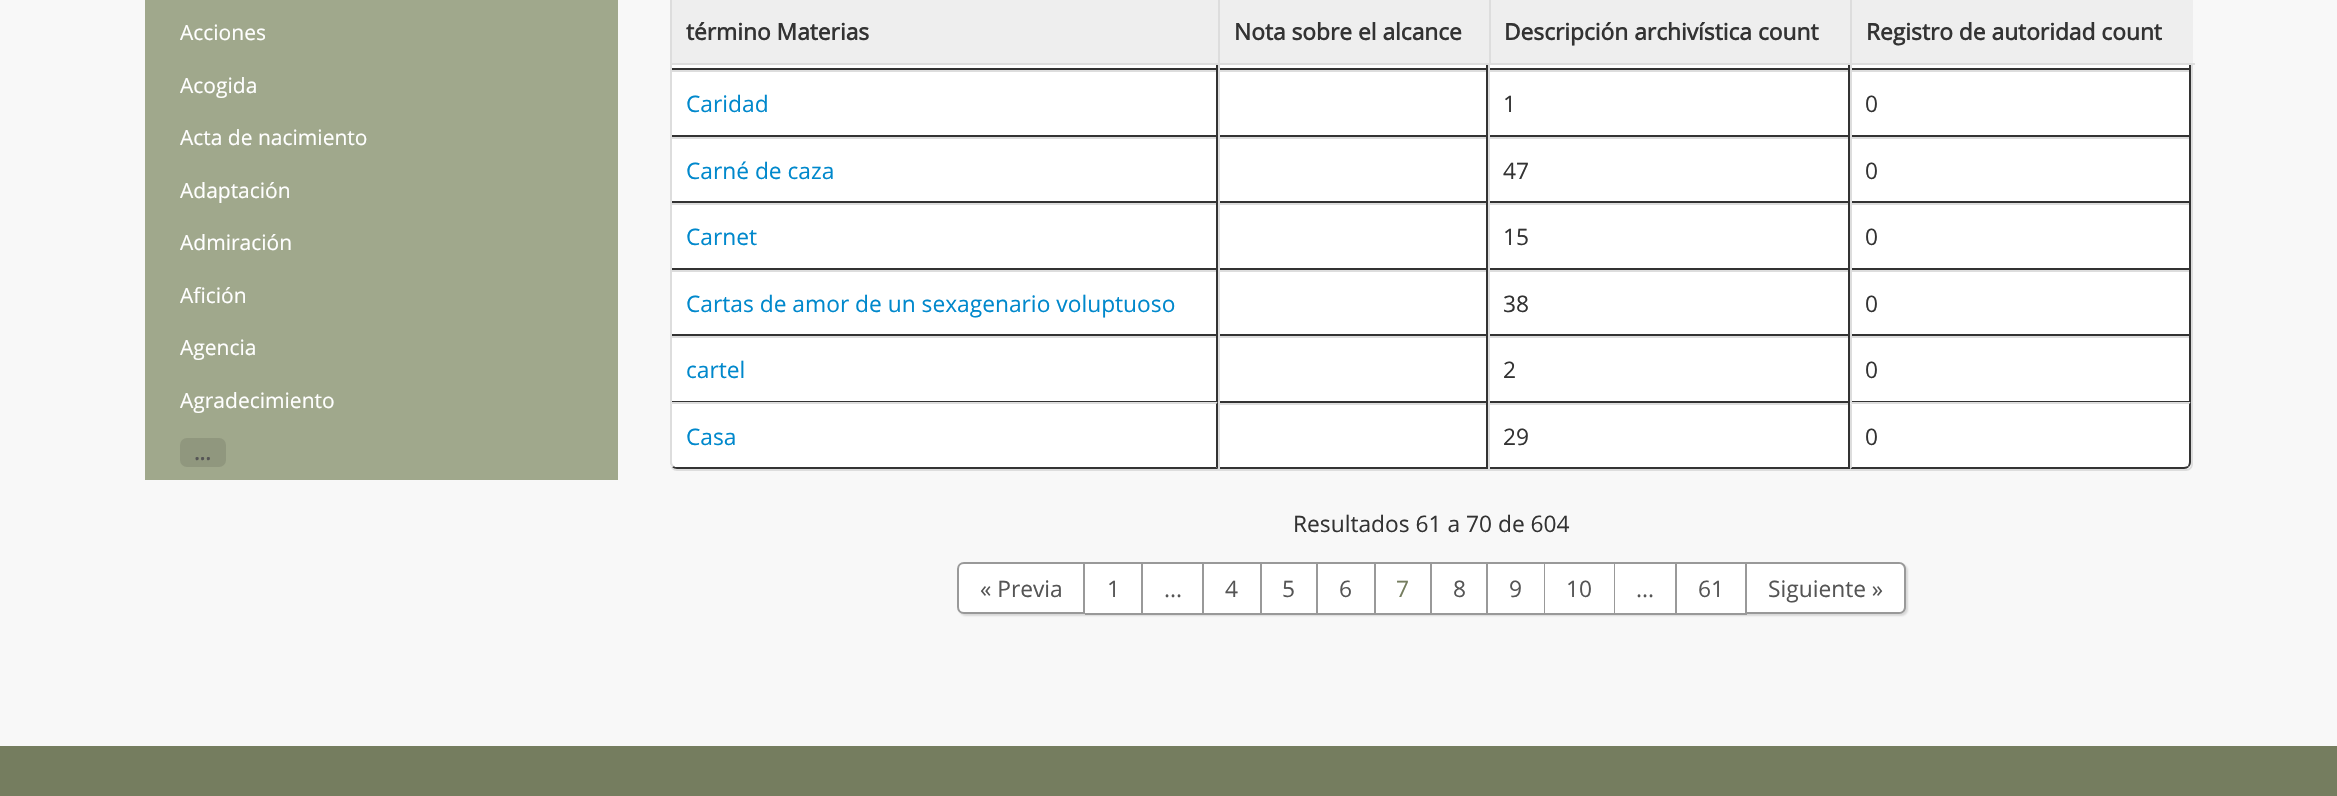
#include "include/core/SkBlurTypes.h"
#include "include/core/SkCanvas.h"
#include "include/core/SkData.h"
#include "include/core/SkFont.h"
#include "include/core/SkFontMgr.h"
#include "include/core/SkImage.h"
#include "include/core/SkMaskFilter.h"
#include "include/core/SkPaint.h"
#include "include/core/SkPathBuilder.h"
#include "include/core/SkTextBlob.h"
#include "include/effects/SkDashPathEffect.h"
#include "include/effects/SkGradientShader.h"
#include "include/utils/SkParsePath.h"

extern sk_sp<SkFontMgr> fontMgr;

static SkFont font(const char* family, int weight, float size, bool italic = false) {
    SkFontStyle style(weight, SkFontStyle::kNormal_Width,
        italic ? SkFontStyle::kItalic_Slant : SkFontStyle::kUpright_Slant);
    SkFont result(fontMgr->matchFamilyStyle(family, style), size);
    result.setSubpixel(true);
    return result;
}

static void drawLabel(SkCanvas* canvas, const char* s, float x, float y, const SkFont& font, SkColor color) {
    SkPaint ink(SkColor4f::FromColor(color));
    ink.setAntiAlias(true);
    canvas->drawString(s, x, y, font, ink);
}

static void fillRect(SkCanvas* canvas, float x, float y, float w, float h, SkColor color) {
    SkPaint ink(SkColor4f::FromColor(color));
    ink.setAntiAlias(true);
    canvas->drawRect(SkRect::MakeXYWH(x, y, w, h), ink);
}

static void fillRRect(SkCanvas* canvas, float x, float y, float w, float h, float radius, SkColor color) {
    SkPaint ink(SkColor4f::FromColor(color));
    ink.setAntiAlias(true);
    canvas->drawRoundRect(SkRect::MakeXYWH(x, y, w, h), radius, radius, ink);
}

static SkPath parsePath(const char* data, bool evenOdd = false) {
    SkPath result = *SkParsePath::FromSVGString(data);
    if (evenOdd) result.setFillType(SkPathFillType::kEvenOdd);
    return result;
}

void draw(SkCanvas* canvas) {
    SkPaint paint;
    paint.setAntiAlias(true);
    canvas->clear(0xFFF8F8F8);
    fillRect(canvas, 145, 0, 473, 480, 0xFFA0A88C);
    SkFont font1 = font("Open Sans", 400, 21);
    drawLabel(canvas, "Acciones", 180, 40, font1, 0xFFFFFFFF);
    drawLabel(canvas, "Acogida", 180, 93, font1, 0xFFFFFFFF);
    drawLabel(canvas, "Acta de nacimiento", 180, 145, font1, 0xFFFFFFFF);
    drawLabel(canvas, "Adaptación", 180, 198, font1, 0xFFFFFFFF);
    drawLabel(canvas, "Admiración", 180, 250, font1, 0xFFFFFFFF);
    drawLabel(canvas, "Afición", 180, 303, font1, 0xFFFFFFFF);
    drawLabel(canvas, "Agencia", 180, 355, font1, 0xFFFFFFFF);
    drawLabel(canvas, "Agradecimiento", 180, 408, font1, 0xFFFFFFFF);
    fillRRect(canvas, 180, 438, 46, 29, 7, 0xFF90977E);
    SkFont font2 = font("Open Sans", 700, 21);
    drawLabel(canvas, "...", 194, 460, font2, 0xFF555555);
    fillRRect(canvas, 670, -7, 1523, 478, 7, 0xFFFFFFFF);
    paint.setColor(0xFFDDDDDD);
    canvas->drawPath(parsePath("M677-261H2186C2190-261 2193-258 2193-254V464C2193 468 2190 471 2186 471H677C673 471 670 468 670 464V-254C670-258 673-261 677-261ZM677-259H2186C2189-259 2191-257 2191-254V464C2191 467 2189 469 2186 469H677C673 469 670 467 670 464V-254C670-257 673-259 677-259Z", true), paint);
    fillRect(canvas, 672, 0, 546, 63, 0xFFEEEEEE);
    fillRect(canvas, 1850, 63, 345, 2, 0xFFDDDDDD);
    fillRect(canvas, 1850, 0, 2, 65, 0xFFDDDDDD);
    fillRect(canvas, 1489, 63, 363, 2, 0xFFDDDDDD);
    fillRect(canvas, 1489, 0, 2, 65, 0xFFDDDDDD);
    fillRect(canvas, 1218, 63, 273, 2, 0xFFDDDDDD);
    fillRect(canvas, 1218, 0, 2, 65, 0xFFDDDDDD);
    fillRect(canvas, 1216, 65, 2, 5, 0xFF333333);
    fillRect(canvas, 670, 68, 548, 2, 0xFF333333);
    fillRect(canvas, 670, 4, 2, 66, 0xFFDDDDDD);
    fillRect(canvas, 670, 63, 550, 2, 0xFFDDDDDD);
    SkFont font3 = font("Open Sans", 700, 22.75f);
    drawLabel(canvas, "término Materias", 686, 40, font3, 0xFF333333);
    fillRect(canvas, 1220, 0, 269, 63, 0xFFEEEEEE);
    drawLabel(canvas, "Nota sobre el alcance", 1234, 40, font3, 0xFF333333);
    fillRect(canvas, 1491, 0, 359, 63, 0xFFEEEEEE);
    drawLabel(canvas, "Descripción archivística count", 1504, 40, font3, 0xFF333333);
    fillRect(canvas, 1852, 0, 341, 63, 0xFFEEEEEE);
    drawLabel(canvas, "Registro de autoridad count", 1866, 40, font3, 0xFF333333);
    fillRect(canvas, 670, 0, 2, 4, 0xFFDDDDDD);
    fillRect(canvas, 1486, 65, 2, 5, 0xFF333333);
    fillRect(canvas, 1218, 68, 270, 2, 0xFF333333);
    fillRect(canvas, 1218, 65, 2, 5, 0xFFDDDDDD);
    fillRect(canvas, 1848, 65, 2, 5, 0xFF333333);
    fillRect(canvas, 1488, 68, 362, 2, 0xFF333333);
    fillRect(canvas, 1488, 65, 2, 5, 0xFFDDDDDD);
    fillRect(canvas, 2189, 65, 2, 5, 0xFF333333);
    fillRect(canvas, 1850, 68, 341, 2, 0xFF333333);
    fillRect(canvas, 1850, 65, 2, 5, 0xFFDDDDDD);
    fillRect(canvas, 670, 70, 1521, 2, 0xFFDDDDDD);
    fillRect(canvas, 1216, 70, 2, 67, 0xFF333333);
    fillRect(canvas, 670, 135, 548, 2, 0xFF333333);
    fillRect(canvas, 670, 70, 2, 67, 0xFFDDDDDD);
    SkFont font4 = font("Open Sans", 400, 22.75f);
    drawLabel(canvas, "Caridad", 686, 112, font4, 0xFF0088CC);
    fillRect(canvas, 1486, 70, 2, 67, 0xFF333333);
    fillRect(canvas, 1218, 135, 270, 2, 0xFF333333);
    fillRect(canvas, 1218, 70, 2, 67, 0xFFDDDDDD);
    fillRect(canvas, 1848, 70, 2, 67, 0xFF333333);
    fillRect(canvas, 1488, 135, 362, 2, 0xFF333333);
    fillRect(canvas, 1488, 70, 2, 67, 0xFFDDDDDD);
    drawLabel(canvas, "1", 1503, 112, font4, 0xFF333333);
    fillRect(canvas, 2189, 70, 2, 67, 0xFF333333);
    fillRect(canvas, 1850, 135, 341, 2, 0xFF333333);
    fillRect(canvas, 1850, 70, 2, 67, 0xFFDDDDDD);
    drawLabel(canvas, "0", 1865, 112, font4, 0xFF333333);
    fillRect(canvas, 670, 137, 1521, 2, 0xFFDDDDDD);
    fillRect(canvas, 1216, 137, 2, 66, 0xFF333333);
    fillRect(canvas, 670, 201, 548, 2, 0xFF333333);
    fillRect(canvas, 670, 137, 2, 66, 0xFFDDDDDD);
    drawLabel(canvas, "Carné de caza", 686, 179, font4, 0xFF0088CC);
    fillRect(canvas, 1486, 137, 2, 66, 0xFF333333);
    fillRect(canvas, 1218, 201, 270, 2, 0xFF333333);
    fillRect(canvas, 1218, 137, 2, 66, 0xFFDDDDDD);
    fillRect(canvas, 1848, 137, 2, 66, 0xFF333333);
    fillRect(canvas, 1488, 201, 362, 2, 0xFF333333);
    fillRect(canvas, 1488, 137, 2, 66, 0xFFDDDDDD);
    drawLabel(canvas, "47", 1503, 179, font4, 0xFF333333);
    fillRect(canvas, 2189, 137, 2, 66, 0xFF333333);
    fillRect(canvas, 1850, 201, 341, 2, 0xFF333333);
    fillRect(canvas, 1850, 137, 2, 66, 0xFFDDDDDD);
    drawLabel(canvas, "0", 1865, 179, font4, 0xFF333333);
    fillRect(canvas, 670, 203, 1521, 2, 0xFFDDDDDD);
    fillRect(canvas, 1216, 203, 2, 67, 0xFF333333);
    fillRect(canvas, 670, 268, 548, 2, 0xFF333333);
    fillRect(canvas, 670, 203, 2, 67, 0xFFDDDDDD);
    drawLabel(canvas, "Carnet", 686, 245, font4, 0xFF0088CC);
    fillRect(canvas, 1486, 203, 2, 67, 0xFF333333);
    fillRect(canvas, 1218, 268, 270, 2, 0xFF333333);
    fillRect(canvas, 1218, 203, 2, 67, 0xFFDDDDDD);
    fillRect(canvas, 1848, 203, 2, 67, 0xFF333333);
    fillRect(canvas, 1488, 268, 362, 2, 0xFF333333);
    fillRect(canvas, 1488, 203, 2, 67, 0xFFDDDDDD);
    drawLabel(canvas, "15", 1503, 245, font4, 0xFF333333);
    fillRect(canvas, 2189, 203, 2, 67, 0xFF333333);
    fillRect(canvas, 1850, 268, 341, 2, 0xFF333333);
    fillRect(canvas, 1850, 203, 2, 67, 0xFFDDDDDD);
    drawLabel(canvas, "0", 1865, 245, font4, 0xFF333333);
    fillRect(canvas, 670, 270, 1521, 2, 0xFFDDDDDD);
    fillRect(canvas, 1216, 270, 2, 66, 0xFF333333);
    fillRect(canvas, 670, 334, 548, 2, 0xFF333333);
    fillRect(canvas, 670, 270, 2, 66, 0xFFDDDDDD);
    drawLabel(canvas, "Cartas de amor de un sexagenario voluptuoso", 686, 312, font4, 0xFF0088CC);
    fillRect(canvas, 1486, 270, 2, 66, 0xFF333333);
    fillRect(canvas, 1218, 334, 270, 2, 0xFF333333);
    fillRect(canvas, 1218, 270, 2, 66, 0xFFDDDDDD);
    fillRect(canvas, 1848, 270, 2, 66, 0xFF333333);
    fillRect(canvas, 1488, 334, 362, 2, 0xFF333333);
    fillRect(canvas, 1488, 270, 2, 66, 0xFFDDDDDD);
    drawLabel(canvas, "38", 1503, 312, font4, 0xFF333333);
    fillRect(canvas, 2189, 270, 2, 66, 0xFF333333);
    fillRect(canvas, 1850, 334, 341, 2, 0xFF333333);
    fillRect(canvas, 1850, 270, 2, 66, 0xFFDDDDDD);
    drawLabel(canvas, "0", 1865, 312, font4, 0xFF333333);
    fillRect(canvas, 670, 336, 1521, 2, 0xFFDDDDDD);
    fillRect(canvas, 1216, 336, 2, 67, 0xFF333333);
    fillRect(canvas, 670, 401, 548, 2, 0xFF333333);
    fillRect(canvas, 670, 336, 2, 67, 0xFFDDDDDD);
    drawLabel(canvas, "cartel", 686, 378, font4, 0xFF0088CC);
    fillRect(canvas, 1486, 336, 2, 67, 0xFF333333);
    fillRect(canvas, 1218, 401, 270, 2, 0xFF333333);
    fillRect(canvas, 1218, 336, 2, 67, 0xFFDDDDDD);
    fillRect(canvas, 1848, 336, 2, 67, 0xFF333333);
    fillRect(canvas, 1488, 401, 362, 2, 0xFF333333);
    fillRect(canvas, 1488, 336, 2, 67, 0xFFDDDDDD);
    drawLabel(canvas, "2", 1503, 378, font4, 0xFF333333);
    fillRect(canvas, 2189, 336, 2, 67, 0xFF333333);
    fillRect(canvas, 1850, 401, 341, 2, 0xFF333333);
    fillRect(canvas, 1850, 336, 2, 67, 0xFFDDDDDD);
    drawLabel(canvas, "0", 1865, 378, font4, 0xFF333333);
    canvas->drawPath(parsePath("M672 404H1216L1218 402H670Z"), paint);
    paint.setColor(0xFF333333);
    canvas->drawPath(parsePath("M1218 402L1216 404V467L1218 469Z"), paint);
    canvas->drawPath(parsePath("M1218 469L1216 467H677C676 467 674 467 674 466L672 467C673 468 675 469 677 469Z"), paint);
    paint.setColor(0xFFDDDDDD);
    canvas->drawPath(parsePath("M672 467L670 464V402L672 404V462C672 464 673 465 674 466Z"), paint);
    drawLabel(canvas, "Casa", 686, 445, font4, 0xFF0088CC);
    fillRect(canvas, 1218, 403, 632, 2, 0xFFDDDDDD);
    fillRect(canvas, 1486, 403, 2, 66, 0xFF333333);
    fillRect(canvas, 1218, 467, 270, 2, 0xFF333333);
    fillRect(canvas, 1218, 403, 2, 66, 0xFFDDDDDD);
    fillRect(canvas, 1848, 403, 2, 66, 0xFF333333);
    fillRect(canvas, 1488, 467, 362, 2, 0xFF333333);
    fillRect(canvas, 1488, 403, 2, 66, 0xFFDDDDDD);
    drawLabel(canvas, "29", 1503, 445, font4, 0xFF333333);
    canvas->drawPath(parsePath("M1852 404V405L1850 402H2191L2189 404Z"), paint);
    paint.setColor(0xFF333333);
    canvas->drawPath(parsePath("M2191 402L2189 404V462C2189 464 2188 465 2188 466L2189 467C2190 466 2191 464 2191 462Z"), paint);
    canvas->drawPath(parsePath("M1850 469H2184C2186 469 2188 468 2189 467L2188 466C2187 466 2186 467 2184 467H1852Z"), paint);
    paint.setColor(0xFFDDDDDD);
    canvas->drawPath(parsePath("M1850 469V403L1852 405V467Z"), paint);
    drawLabel(canvas, "0", 1865, 445, font4, 0xFF333333);
    drawLabel(canvas, "Resultados 61 a 70 de 604", 1293, 532, font4, 0xFF333333);
    paint.setColor(0x26191919);
    paint.setMaskFilter(SkMaskFilter::MakeBlur(kNormal_SkBlurStyle, 1));
    canvas->drawRoundRect(SkRect::MakeXYWH(959, 564, 949, 52), 7, 7, paint);
    paint.setMaskFilter(nullptr);
    paint.setColor(0xFFFFFFFF);
    canvas->drawPath(parsePath("M964 563H1084V613H964C960.5 613 958 610.5 958 607V569C958 565.5 960.5 563 964 563Z"), paint);
    paint.setStroke(true);
    paint.setStrokeWidth(2);
    paint.setColor(0xFF999999);
    canvas->drawPath(parsePath("M964 563H1084V613H964C960.5 613 958 610.5 958 607V569C958 565.5 960.5 563 964 563Z"), paint);
    drawLabel(canvas, "« Previa", 980, 597, font4, 0xFF555555);
    fillRect(canvas, 1085, 564, 56, 49, 0xFFFFFFFF);
    fillRect(canvas, 1085, 562, 662, 2, 0xFF999999);
    fillRect(canvas, 1141, 562, 2, 52, 0xFF999999);
    fillRect(canvas, 1085, 613, 58, 2, 0xFF999999);
    drawLabel(canvas, "1", 1107, 597, font4, 0xFF555555);
    fillRect(canvas, 1143, 564, 59, 49, 0xFFFFFFFF);
    fillRect(canvas, 1202, 562, 2, 52, 0xFF999999);
    fillRect(canvas, 1143, 613, 61, 2, 0xFF999999);
    drawLabel(canvas, "...", 1164, 597, font4, 0xFF555555);
    fillRect(canvas, 1204, 564, 56, 49, 0xFFFFFFFF);
    fillRect(canvas, 1260, 562, 2, 52, 0xFF999999);
    fillRect(canvas, 1204, 613, 58, 2, 0xFF999999);
    drawLabel(canvas, "4", 1225, 597, font4, 0xFF555555);
    fillRect(canvas, 1262, 564, 54, 49, 0xFFFFFFFF);
    fillRect(canvas, 1316, 562, 2, 52, 0xFF999999);
    fillRect(canvas, 1262, 613, 56, 2, 0xFF999999);
    drawLabel(canvas, "5", 1282, 597, font4, 0xFF555555);
    fillRect(canvas, 1318, 564, 56, 49, 0xFFFFFFFF);
    fillRect(canvas, 1374, 562, 2, 52, 0xFF999999);
    fillRect(canvas, 1318, 613, 58, 2, 0xFF999999);
    drawLabel(canvas, "6", 1339, 597, font4, 0xFF555555);
    fillRect(canvas, 1376, 564, 54, 49, 0xFFFFFFFF);
    fillRect(canvas, 1430, 562, 2, 52, 0xFF999999);
    fillRect(canvas, 1376, 613, 56, 2, 0xFF999999);
    drawLabel(canvas, "7", 1396, 597, font4, 0xFF757D5F);
    fillRect(canvas, 1432, 564, 54, 49, 0xFFFFFFFF);
    fillRect(canvas, 1486, 562, 2, 52, 0xFF999999);
    fillRect(canvas, 1432, 613, 56, 2, 0xFF999999);
    drawLabel(canvas, "8", 1453, 597, font4, 0xFF555555);
    fillRect(canvas, 1488, 564, 56, 49, 0xFFFFFFFF);
    fillRect(canvas, 1544, 562, 1, 52, 0xFF999999);
    fillRect(canvas, 1488, 613, 57, 2, 0xFF999999);
    drawLabel(canvas, "9", 1509, 597, font4, 0xFF555555);
    fillRect(canvas, 1545, 564, 69, 49, 0xFFFFFFFF);
    fillRect(canvas, 1614, 562, 1, 52, 0xFF999999);
    fillRect(canvas, 1545, 613, 70, 2, 0xFF999999);
    drawLabel(canvas, "10", 1566, 597, font4, 0xFF555555);
    fillRect(canvas, 1615, 564, 60, 49, 0xFFFFFFFF);
    fillRect(canvas, 1675, 562, 2, 52, 0xFF999999);
    fillRect(canvas, 1615, 613, 62, 2, 0xFF999999);
    drawLabel(canvas, "...", 1636, 597, font4, 0xFF555555);
    fillRect(canvas, 1677, 564, 68, 49, 0xFFFFFFFF);
    fillRect(canvas, 1745, 562, 2, 52, 0xFF999999);
    fillRect(canvas, 1677, 613, 70, 2, 0xFF999999);
    drawLabel(canvas, "61", 1698, 597, font4, 0xFF555555);
    paint.setStroke(false);
    paint.setColor(0xFFFFFFFF);
    canvas->drawPath(parsePath("M1747 564H1899C1902 564 1904 566 1904 569V608C1904 611 1902 613 1899 613H1747Z"), paint);
    paint.setColor(0xFF999999);
    canvas->drawPath(parsePath("M1746 562H1899C1903 562 1906 565 1906 569V607C1906 611 1903 614 1899 614H1746ZM1746 564H1899C1902 564 1904 566 1904 569V607C1904 610 1902 612 1899 612H1746Z", true), paint);
    drawLabel(canvas, "Siguiente »", 1768, 597, font4, 0xFF555555);
    fillRect(canvas, 0, 746, 2337, 50, 0xFF757D5F);
}
